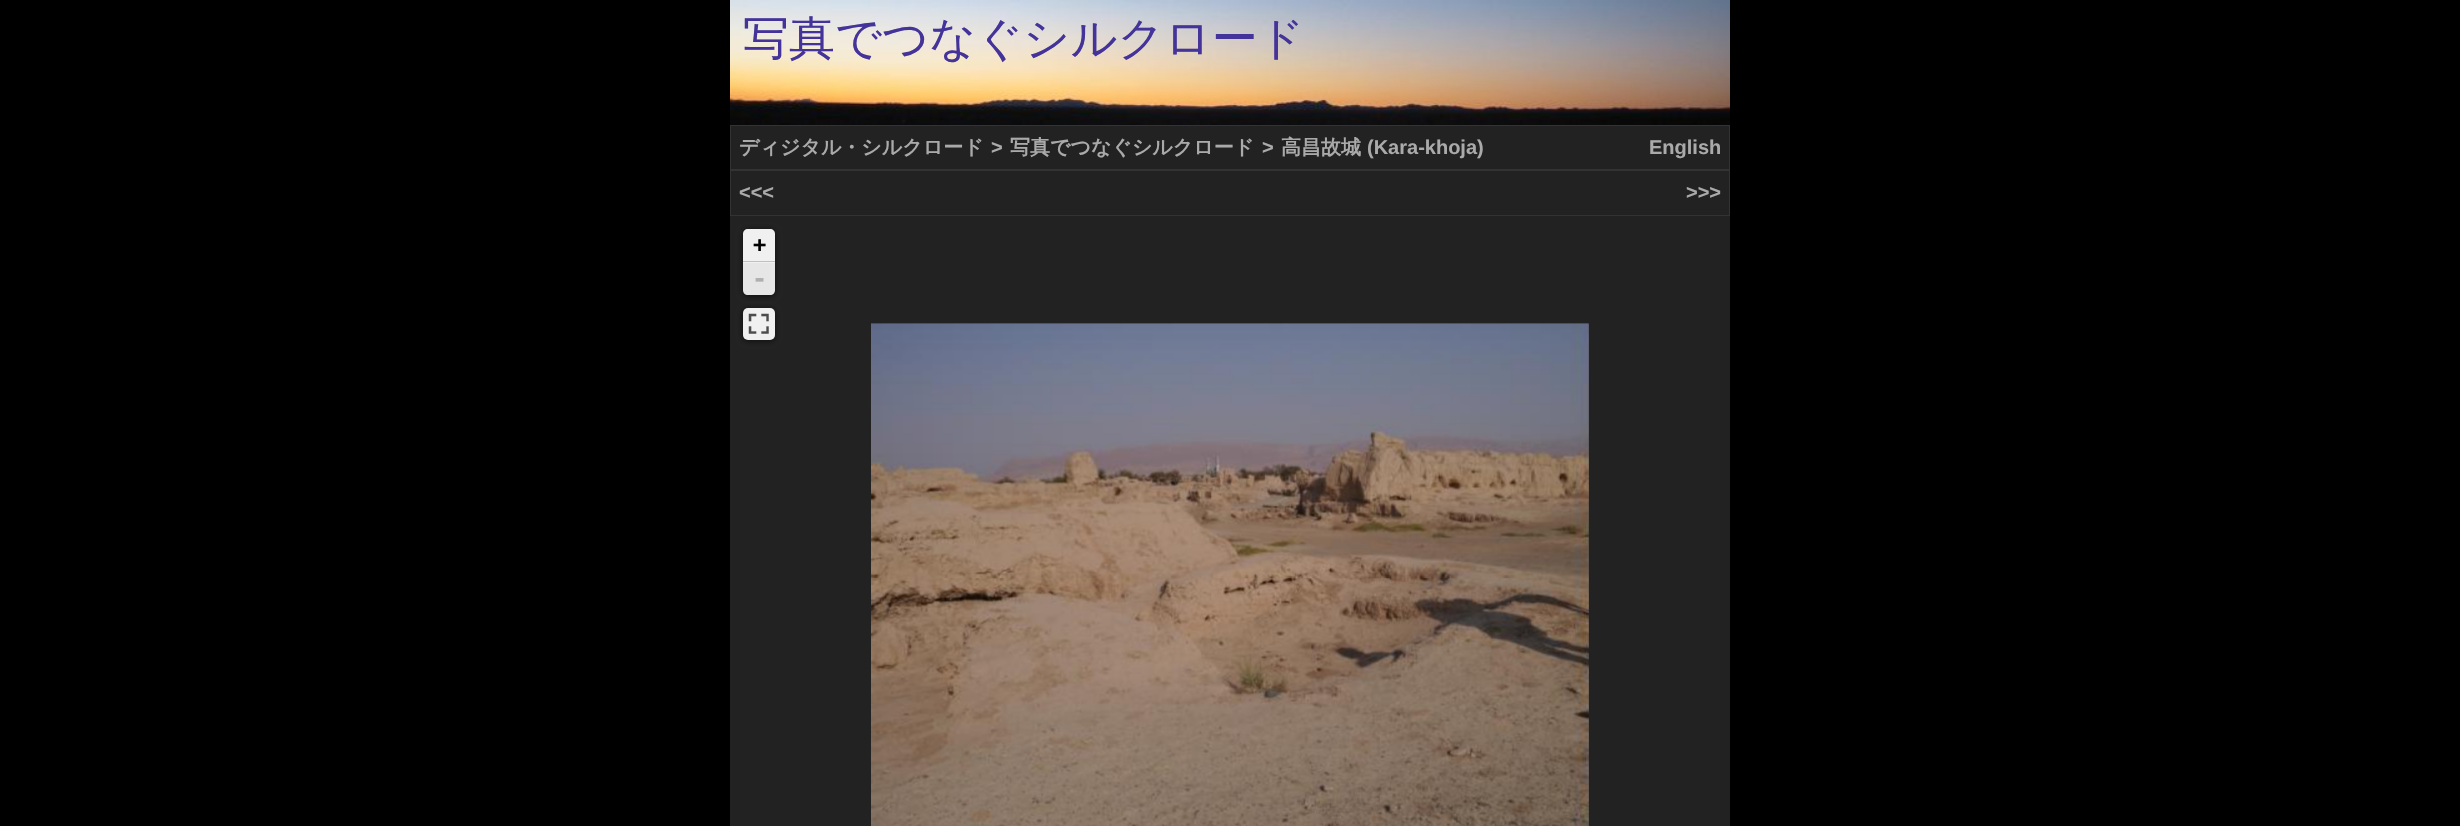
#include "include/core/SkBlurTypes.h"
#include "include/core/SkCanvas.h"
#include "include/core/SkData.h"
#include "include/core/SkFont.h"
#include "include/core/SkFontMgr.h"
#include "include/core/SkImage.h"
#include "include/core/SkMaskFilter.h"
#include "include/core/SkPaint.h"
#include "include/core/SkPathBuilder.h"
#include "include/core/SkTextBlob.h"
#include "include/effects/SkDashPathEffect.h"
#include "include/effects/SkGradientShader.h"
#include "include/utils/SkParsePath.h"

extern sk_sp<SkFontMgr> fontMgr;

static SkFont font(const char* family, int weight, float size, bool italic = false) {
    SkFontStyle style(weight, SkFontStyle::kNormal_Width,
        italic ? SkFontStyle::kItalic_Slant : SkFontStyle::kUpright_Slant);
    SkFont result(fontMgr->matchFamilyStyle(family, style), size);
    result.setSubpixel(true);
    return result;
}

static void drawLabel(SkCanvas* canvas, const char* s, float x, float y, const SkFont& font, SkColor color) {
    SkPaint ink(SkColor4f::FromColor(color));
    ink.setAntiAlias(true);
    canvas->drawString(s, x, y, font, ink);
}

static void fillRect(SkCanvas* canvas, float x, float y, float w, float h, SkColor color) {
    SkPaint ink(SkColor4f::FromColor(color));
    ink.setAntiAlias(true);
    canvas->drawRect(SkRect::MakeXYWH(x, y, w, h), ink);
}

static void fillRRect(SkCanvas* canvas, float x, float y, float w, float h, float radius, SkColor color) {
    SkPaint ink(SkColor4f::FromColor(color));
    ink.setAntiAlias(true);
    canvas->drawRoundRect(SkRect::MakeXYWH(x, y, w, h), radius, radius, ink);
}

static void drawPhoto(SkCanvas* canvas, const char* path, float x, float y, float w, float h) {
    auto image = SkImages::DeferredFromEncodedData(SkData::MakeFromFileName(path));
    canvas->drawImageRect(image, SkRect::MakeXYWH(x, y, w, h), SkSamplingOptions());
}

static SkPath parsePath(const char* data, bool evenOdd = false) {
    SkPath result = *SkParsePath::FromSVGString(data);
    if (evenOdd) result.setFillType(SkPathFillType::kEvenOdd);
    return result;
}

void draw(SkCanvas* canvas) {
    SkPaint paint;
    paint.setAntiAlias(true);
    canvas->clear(0xFF000000);
    drawPhoto(canvas, "assets/img1.png", 730, 0, 1000, 125);
    SkFont font1 = font("WenQuanYi Zen Hei", 500, 46);
    drawLabel(canvas, "写真でつなぐシルクロード", 743, 54, font1, 0xFF443399);
    paint.setStroke(true);
    paint.setStrokeWidth(1);
    paint.setColor(0xFF333333);
    canvas->drawRect(SkRect::MakeXYWH(730.5f, 125.5f, 999, 44), paint);
    fillRect(canvas, 731, 126, 998, 43, 0xFF222222);
    SkFont font2 = font("WenQuanYi Zen Hei", 700, 20);
    drawLabel(canvas, "ディジタル・シルクロード", 739, 154, font2, 0xFFAAAAAA);
    SkFont font3 = font("Liberation Sans", 700, 20);
    drawLabel(canvas, ">", 991, 154, font3, 0xFFAAAAAA);
    drawLabel(canvas, "写真でつなぐシルクロード", 1010, 154, font2, 0xFFAAAAAA);
    drawLabel(canvas, ">", 1262, 154, font3, 0xFFAAAAAA);
    drawLabel(canvas, "高昌故城", 1281, 154, font2, 0xFFAAAAAA);
    drawLabel(canvas, "(Kara-khoja)", 1367, 154, font3, 0xFFAAAAAA);
    drawLabel(canvas, "English", 1649, 154, font3, 0xFFAAAAAA);
    canvas->drawRect(SkRect::MakeXYWH(730.5f, 170.5f, 999, 45), paint);
    fillRect(canvas, 731, 171, 998, 44, 0xFF222222);
    drawLabel(canvas, "<<<", 739, 199, font3, 0xFFAAAAAA);
    drawLabel(canvas, ">>>", 1686, 199, font3, 0xFFAAAAAA);
    fillRect(canvas, 730, 216, 1000, 610, 0xFF222222);
    paint.setStroke(false);
    paint.setColor(0xA6020202);
    paint.setMaskFilter(SkMaskFilter::MakeBlur(kNormal_SkBlurStyle, 3));
    canvas->drawRoundRect(SkRect::MakeXYWH(743, 230, 32, 66), 5, 5, paint);
    paint.setMaskFilter(nullptr);
    paint.setColor(0xFFF0F0F0);
    canvas->drawPath(parsePath("M748 229H770C773 229 775 231 775 234V263H743V234C743 231 745 229 748 229Z"), paint);
    fillRect(canvas, 743, 261, 32, 1, 0xFFC0C0C0);
    SkFont font4 = font("DejaVu Sans Mono", 700, 22);
    drawLabel(canvas, "+", 753, 252, font4, 0xFF020202);
    paint.setColor(0xFFE6E6E6);
    canvas->drawPath(parsePath("M743 263H775V290C775 293 773 295 770 295H748C745 295 743 293 743 290Z"), paint);
    SkFont font5 = font("DejaVu Sans Mono", 700, 25);
    drawLabel(canvas, "-", 752, 287, font5, 0xFFB0B0B0);
    paint.setColor(0xA6020202);
    paint.setMaskFilter(SkMaskFilter::MakeBlur(kNormal_SkBlurStyle, 3));
    canvas->drawRoundRect(SkRect::MakeXYWH(743, 309, 32, 32), 5, 5, paint);
    paint.setMaskFilter(nullptr);
    fillRRect(canvas, 743, 308, 32, 32, 5, 0xFFF0F0F0);
    drawPhoto(canvas, "assets/img2.png", 748, 313, 21, 21);
    drawPhoto(canvas, "assets/img3.png", 871, 323, 718, 503);
    drawPhoto(canvas, "assets/img4.png", 871, 323, 718, 503);
}
